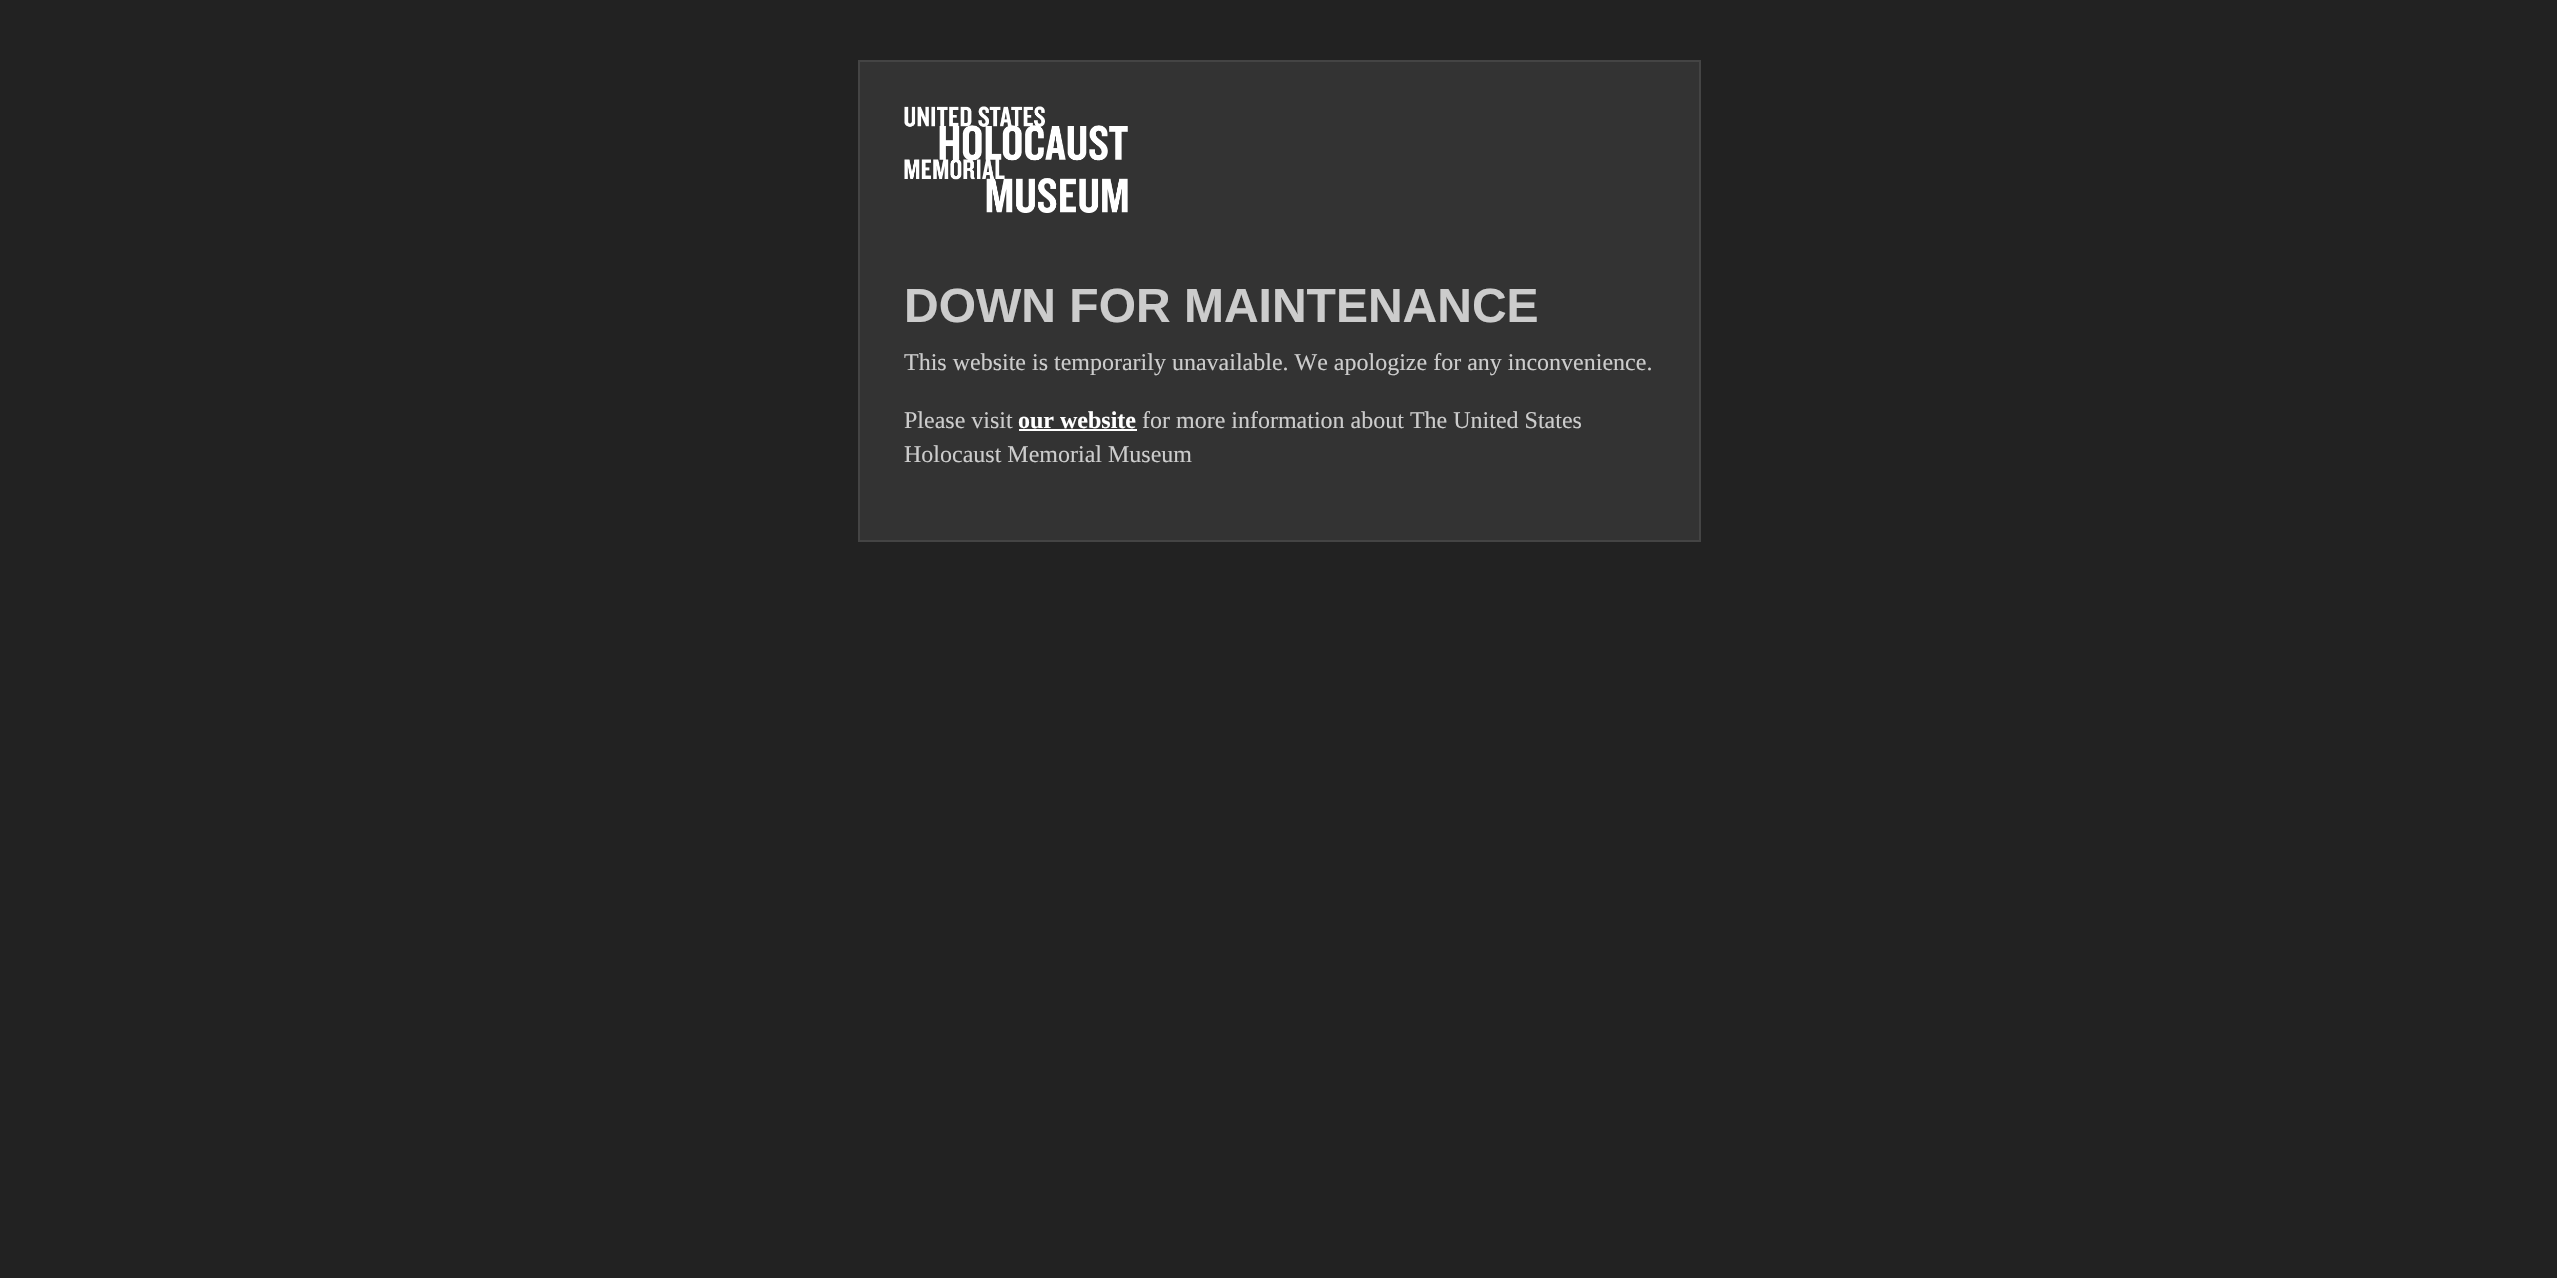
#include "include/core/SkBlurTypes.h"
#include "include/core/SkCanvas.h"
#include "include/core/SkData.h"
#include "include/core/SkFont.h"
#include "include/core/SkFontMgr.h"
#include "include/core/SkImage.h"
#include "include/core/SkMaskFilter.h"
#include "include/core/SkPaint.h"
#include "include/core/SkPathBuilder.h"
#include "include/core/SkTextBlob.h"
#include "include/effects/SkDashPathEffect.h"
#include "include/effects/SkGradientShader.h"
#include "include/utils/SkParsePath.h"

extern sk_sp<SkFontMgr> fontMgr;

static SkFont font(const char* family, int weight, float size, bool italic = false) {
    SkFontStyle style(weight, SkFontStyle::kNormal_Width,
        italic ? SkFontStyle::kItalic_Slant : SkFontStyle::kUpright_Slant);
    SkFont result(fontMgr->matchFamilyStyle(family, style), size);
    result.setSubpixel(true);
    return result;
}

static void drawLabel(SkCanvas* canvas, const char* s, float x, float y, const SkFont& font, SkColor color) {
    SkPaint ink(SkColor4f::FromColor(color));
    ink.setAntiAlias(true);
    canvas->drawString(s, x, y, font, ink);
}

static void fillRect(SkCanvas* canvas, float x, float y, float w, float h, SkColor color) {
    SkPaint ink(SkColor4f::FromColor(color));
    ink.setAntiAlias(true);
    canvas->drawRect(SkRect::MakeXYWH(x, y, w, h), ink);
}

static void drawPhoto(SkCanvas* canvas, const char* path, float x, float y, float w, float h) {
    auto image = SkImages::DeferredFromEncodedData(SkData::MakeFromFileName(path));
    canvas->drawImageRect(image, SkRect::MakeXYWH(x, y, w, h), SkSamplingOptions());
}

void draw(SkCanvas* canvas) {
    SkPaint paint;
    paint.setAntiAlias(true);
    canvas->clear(0xFF222222);
    paint.setColor(0xFF333333);
    canvas->drawRect(SkRect::MakeXYWH(859, 61, 841, 480), paint);
    paint.setStroke(true);
    paint.setStrokeWidth(2);
    paint.setColor(0xFF444444);
    canvas->drawRect(SkRect::MakeXYWH(859, 61, 841, 480), paint);
    drawPhoto(canvas, "assets/img1.png", 904, 106, 224, 107);
    SkFont font1 = font("Liberation Sans", 700, 48);
    drawLabel(canvas, "DOWN FOR MAINTENANCE", 904, 322, font1, 0xFFCCCCCC);
    SkFont font2 = font("Liberation Serif", 400, 24);
    drawLabel(canvas, "This website is temporarily unavailable. We apologize for any inconvenience.", 904, 370, font2, 0xFFCCCCCC);
    drawLabel(canvas, "Please visit", 904, 428, font2, 0xFFCCCCCC);
    SkFont font3 = font("Liberation Serif", 700, 24);
    drawLabel(canvas, "our website", 1018, 428, font3, 0xFFFFFFFF);
    fillRect(canvas, 1019, 429, 118, 2, 0xFFFFFFFF);
    drawLabel(canvas, "for more information about The United States", 1142, 428, font2, 0xFFCCCCCC);
    drawLabel(canvas, "Holocaust Memorial Museum", 904, 462, font2, 0xFFCCCCCC);
}
